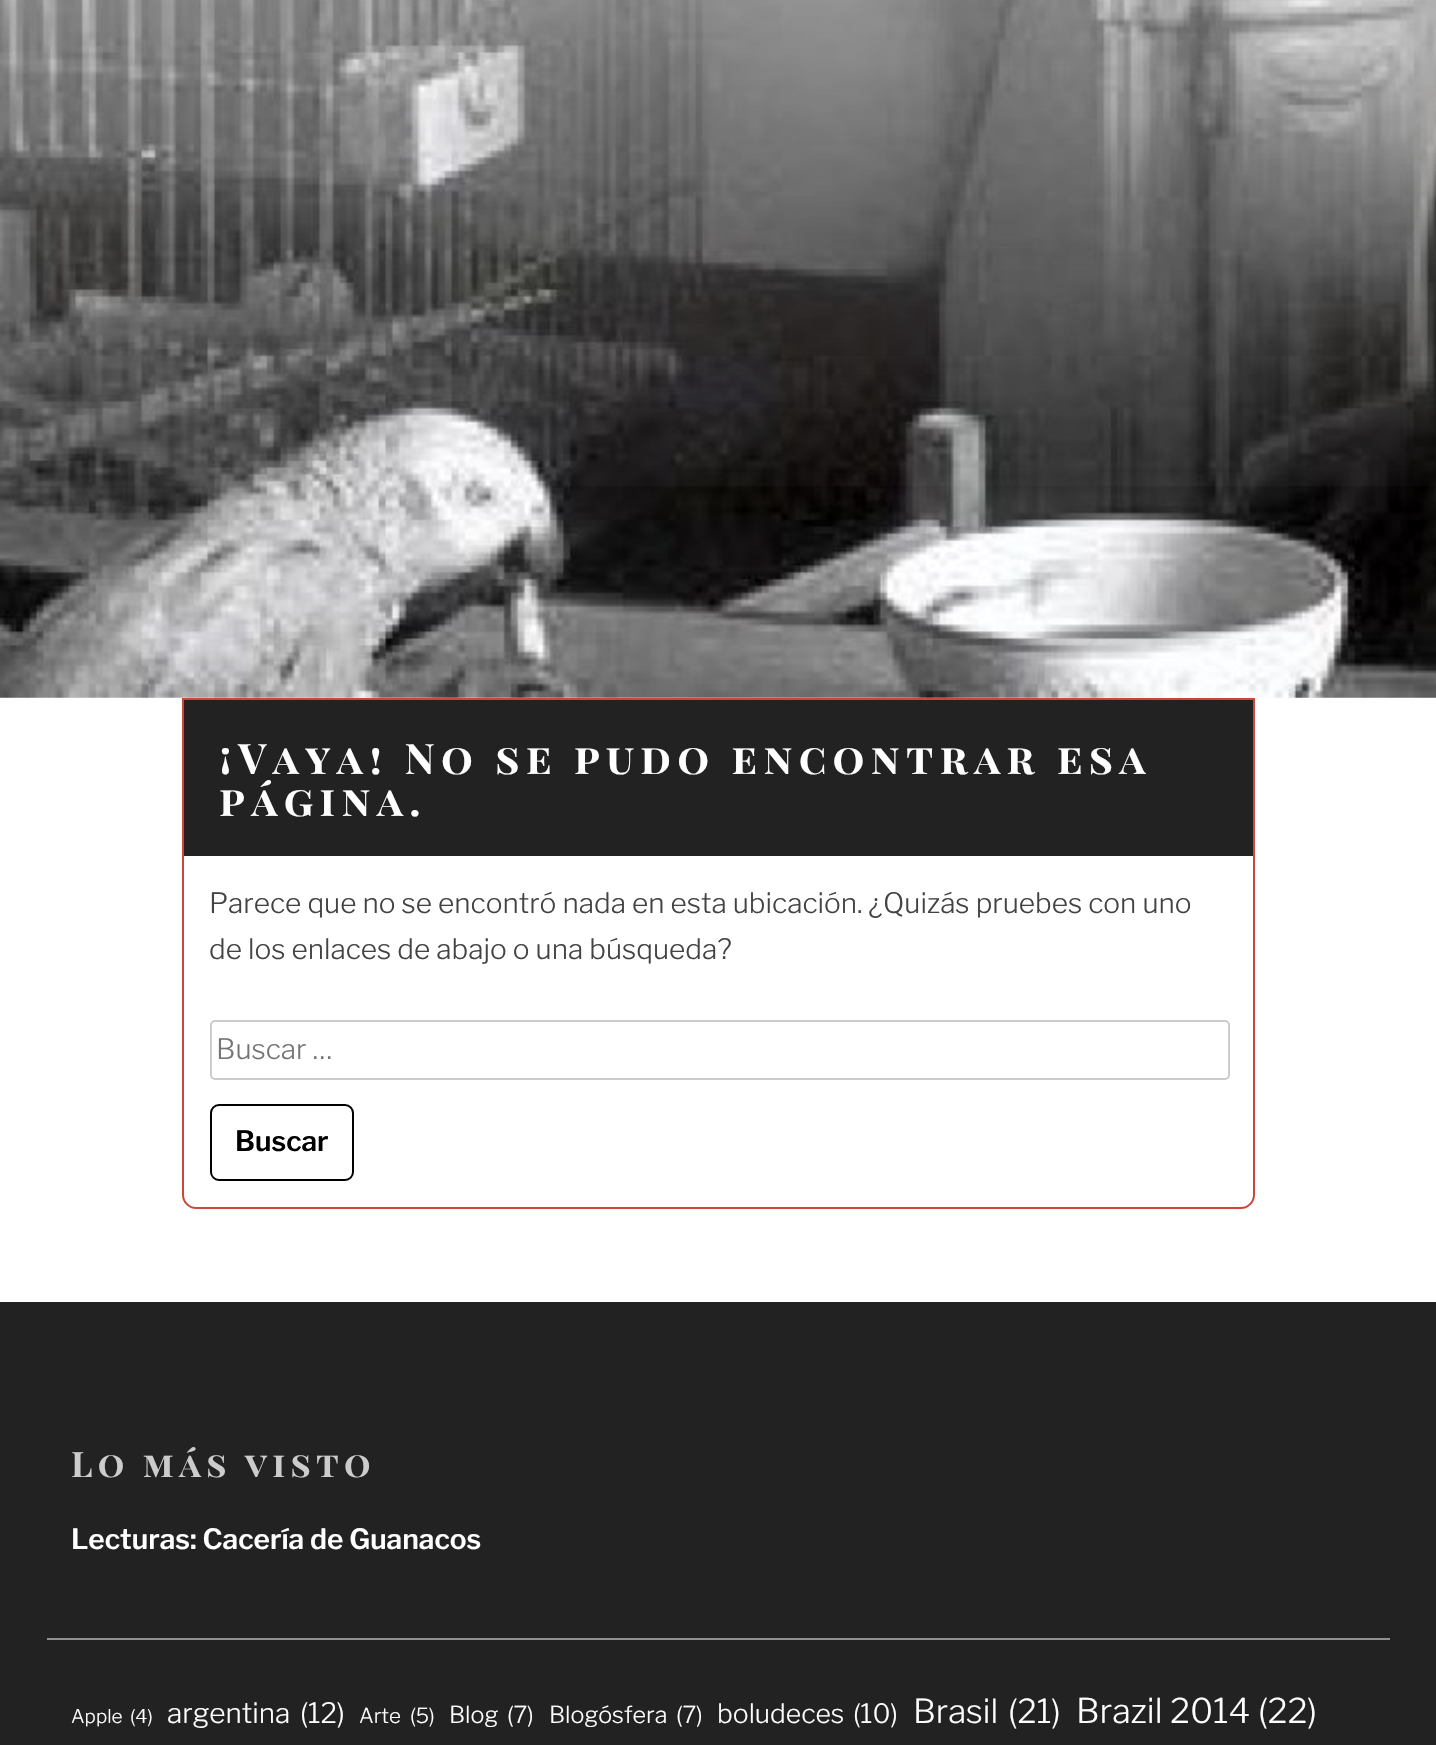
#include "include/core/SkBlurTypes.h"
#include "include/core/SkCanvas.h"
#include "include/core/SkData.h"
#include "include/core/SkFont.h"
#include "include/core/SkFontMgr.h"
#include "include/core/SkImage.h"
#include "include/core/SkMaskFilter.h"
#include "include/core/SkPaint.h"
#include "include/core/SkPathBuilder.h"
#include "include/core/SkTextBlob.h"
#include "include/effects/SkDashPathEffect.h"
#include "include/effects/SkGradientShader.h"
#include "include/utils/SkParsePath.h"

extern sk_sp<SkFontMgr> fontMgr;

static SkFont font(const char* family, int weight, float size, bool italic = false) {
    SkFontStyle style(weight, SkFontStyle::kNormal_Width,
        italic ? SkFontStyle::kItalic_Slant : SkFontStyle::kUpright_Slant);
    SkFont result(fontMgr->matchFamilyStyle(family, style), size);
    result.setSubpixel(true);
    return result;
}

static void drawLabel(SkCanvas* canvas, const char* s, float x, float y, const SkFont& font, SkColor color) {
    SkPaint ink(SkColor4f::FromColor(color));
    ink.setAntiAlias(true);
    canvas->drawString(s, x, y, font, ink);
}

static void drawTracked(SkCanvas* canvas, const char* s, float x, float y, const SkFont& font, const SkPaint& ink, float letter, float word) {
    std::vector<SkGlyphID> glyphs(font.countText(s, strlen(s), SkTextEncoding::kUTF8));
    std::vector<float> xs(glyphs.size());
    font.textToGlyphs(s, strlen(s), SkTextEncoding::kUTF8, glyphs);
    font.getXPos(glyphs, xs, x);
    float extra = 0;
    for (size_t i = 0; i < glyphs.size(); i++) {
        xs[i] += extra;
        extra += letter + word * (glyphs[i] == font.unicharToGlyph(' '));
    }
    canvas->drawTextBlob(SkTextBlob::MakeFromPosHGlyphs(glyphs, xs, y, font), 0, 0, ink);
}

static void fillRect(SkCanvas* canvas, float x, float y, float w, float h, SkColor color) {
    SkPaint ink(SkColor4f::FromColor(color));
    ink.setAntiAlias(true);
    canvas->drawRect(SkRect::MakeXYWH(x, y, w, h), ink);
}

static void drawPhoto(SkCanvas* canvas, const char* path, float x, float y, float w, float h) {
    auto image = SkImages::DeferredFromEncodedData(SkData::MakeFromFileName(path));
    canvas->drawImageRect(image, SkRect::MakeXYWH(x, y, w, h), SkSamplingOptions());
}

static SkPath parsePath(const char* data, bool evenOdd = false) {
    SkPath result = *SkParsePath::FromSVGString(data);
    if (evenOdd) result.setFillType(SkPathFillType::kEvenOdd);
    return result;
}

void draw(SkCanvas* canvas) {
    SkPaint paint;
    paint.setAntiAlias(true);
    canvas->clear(0xFFFFFFFF);
    drawPhoto(canvas, "assets/img1.png", 0, 0, 1436, 698);
    {
        const SkColor colors[] = {0xFFFFFFFF, 0x00FFFFFF};
        const float stops[] = {0, 0.88f};
        const SkPoint ends[] = {{718, -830}, {718, 698}};
        paint.setShader(SkGradientShader::MakeLinear(ends, colors, stops, 2, SkTileMode::kClamp));
        paint.setAlpha(255);
    }
    canvas->drawRect(SkRect::MakeXYWH(0, 0, 1436, 486), paint);
    paint.setStroke(true);
    paint.setStrokeWidth(2);
    paint.setShader(nullptr);
    paint.setColor(0xFFCE4639);
    canvas->drawPath(parsePath("M183 699H1254V1195C1254 1202 1248 1208 1241 1208H196C189 1208 183 1202 183 1195Z"), paint);
    fillRect(canvas, 184, 700, 1069, 156, 0xFF222222);
    SkFont font1 = font("Playfair Display SC", 700, 42);
    paint.setStroke(false);
    paint.setColor(0xFFFFFFFF);
    drawTracked(canvas, "¡Vaya! No se pudo encontrar esa", 219, 774, font1, paint, 6.3f, 0);
    drawTracked(canvas, "página.", 219, 816, font1, paint, 6.3f, 0);
    SkFont font2 = font("Libre Franklin", 300, 28);
    drawLabel(canvas, "Parece que no se encontró nada en esta ubicación. ¿Quizás pruebes con uno", 209, 913, font2, 0xFF434343);
    drawLabel(canvas, "de los enlaces de abajo o una búsqueda?", 209, 959, font2, 0xFF434343);
    paint.setStroke(true);
    paint.setColor(0xFFCCCCCC);
    canvas->drawRoundRect(SkRect::MakeXYWH(211, 1021, 1018, 58), 4, 4, paint);
    drawLabel(canvas, "Buscar …", 216, 1059, font2, 0xFF757575);
    paint.setColor(0xFF000000);
    canvas->drawRoundRect(SkRect::MakeXYWH(211, 1105, 142, 75), 8, 8, paint);
    SkFont font3 = font("Libre Franklin", 600, 28);
    drawLabel(canvas, "Buscar", 235, 1151, font3, 0xFF000000);
    fillRect(canvas, 0, 1302, 1436, 443, 0xFF222222);
    SkFont font4 = font("Playfair Display SC", 700, 35);
    paint.setStroke(false);
    paint.setColor(0xFFCCCCCC);
    drawTracked(canvas, "Lo más visto", 71, 1477, font4, paint, 5.25f, 0);
    drawLabel(canvas, "Lecturas: Cacería de Guanacos", 71, 1549, font3, 0xFFFFFFFF);
    fillRect(canvas, 47, 1638, 1343, 2, 0xFF919191);
    SkFont font5 = font("Libre Franklin", 300, 19);
    drawLabel(canvas, "Apple", 71, 1723, font5, 0xFFFFFFFF);
    drawLabel(canvas, "(4)", 130, 1723, font5, 0xFFFFFFFF);
    drawLabel(canvas, "argentina", 167, 1723, font2, 0xFFFFFFFF);
    drawLabel(canvas, "(12)", 300, 1723, font2, 0xFFFFFFFF);
    SkFont font6 = font("Libre Franklin", 300, 20.5f);
    drawLabel(canvas, "Arte", 359, 1723, font6, 0xFFFFFFFF);
    drawLabel(canvas, "(5)", 410, 1723, font6, 0xFFFFFFFF);
    SkFont font7 = font("Libre Franklin", 300, 23.25f);
    drawLabel(canvas, "Blog", 449, 1723, font7, 0xFFFFFFFF);
    drawLabel(canvas, "(7)", 507, 1723, font7, 0xFFFFFFFF);
    drawLabel(canvas, "Blogósfera", 549, 1723, font7, 0xFFFFFFFF);
    drawLabel(canvas, "(7)", 676, 1723, font7, 0xFFFFFFFF);
    SkFont font8 = font("Libre Franklin", 300, 26.5f);
    drawLabel(canvas, "boludeces", 717, 1723, font8, 0xFFFFFFFF);
    drawLabel(canvas, "(10)", 853, 1723, font8, 0xFFFFFFFF);
    SkFont font9 = font("Libre Franklin", 300, 33);
    drawLabel(canvas, "Brasil", 913, 1723, font9, 0xFFFFFFFF);
    drawLabel(canvas, "(21)", 1008, 1723, font9, 0xFFFFFFFF);
    SkFont font10 = font("Libre Franklin", 300, 34);
    drawLabel(canvas, "Brazil 2014", 1076, 1723, font10, 0xFFFFFFFF);
    drawLabel(canvas, "(22)", 1258, 1723, font10, 0xFFFFFFFF);
}
